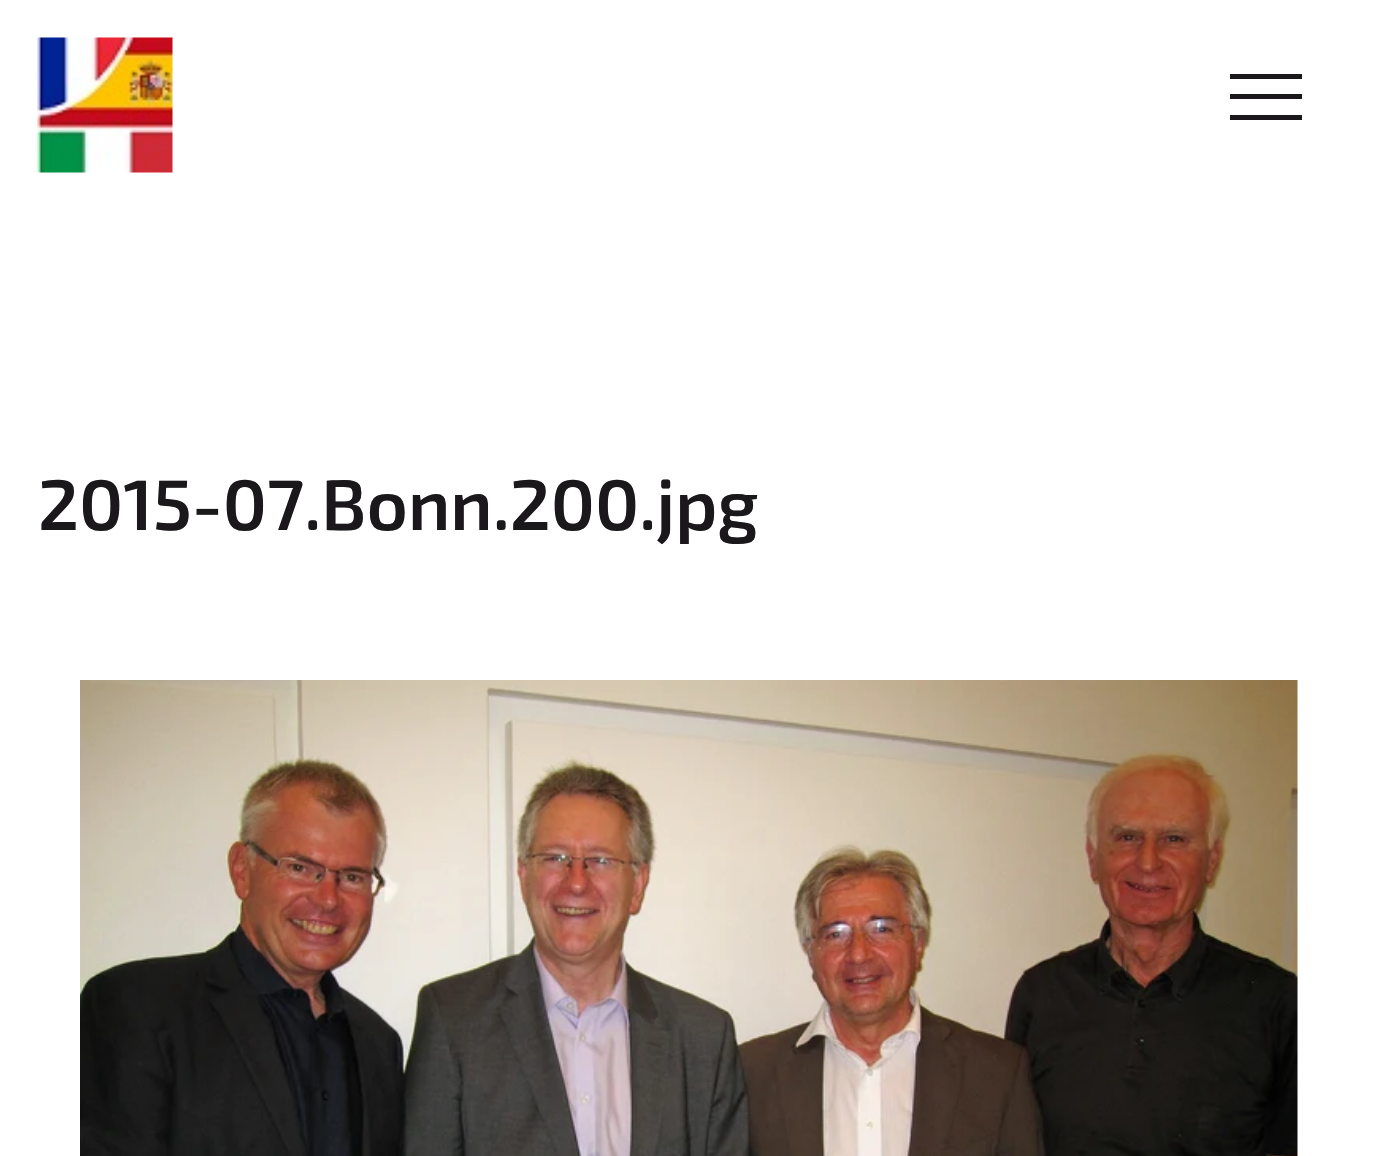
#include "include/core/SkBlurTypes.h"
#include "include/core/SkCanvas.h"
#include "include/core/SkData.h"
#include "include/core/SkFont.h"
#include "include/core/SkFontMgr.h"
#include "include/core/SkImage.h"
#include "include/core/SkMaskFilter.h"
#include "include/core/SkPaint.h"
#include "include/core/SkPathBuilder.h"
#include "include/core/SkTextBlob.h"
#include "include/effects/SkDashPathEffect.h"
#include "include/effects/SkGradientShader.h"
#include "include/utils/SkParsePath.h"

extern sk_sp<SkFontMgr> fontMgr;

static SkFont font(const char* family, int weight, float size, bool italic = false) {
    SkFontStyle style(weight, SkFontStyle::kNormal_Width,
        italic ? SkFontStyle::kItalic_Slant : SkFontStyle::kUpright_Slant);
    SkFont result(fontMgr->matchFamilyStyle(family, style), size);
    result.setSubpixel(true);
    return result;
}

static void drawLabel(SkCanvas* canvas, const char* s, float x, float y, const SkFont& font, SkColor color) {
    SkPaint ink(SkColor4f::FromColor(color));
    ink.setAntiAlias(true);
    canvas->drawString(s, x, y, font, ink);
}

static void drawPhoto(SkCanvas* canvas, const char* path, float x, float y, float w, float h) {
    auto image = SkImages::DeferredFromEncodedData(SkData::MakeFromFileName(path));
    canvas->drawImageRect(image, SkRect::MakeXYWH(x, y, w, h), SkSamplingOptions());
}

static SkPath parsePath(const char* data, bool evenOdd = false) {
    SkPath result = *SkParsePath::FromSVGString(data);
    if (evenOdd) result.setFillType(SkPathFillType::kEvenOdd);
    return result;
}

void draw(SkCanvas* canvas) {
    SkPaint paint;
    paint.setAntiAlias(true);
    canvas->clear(0xFFFFFFFF);
    drawPhoto(canvas, "assets/img1.png", 37, 37, 136, 136);
    paint.setColor(0xFF1A181B);
    canvas->drawPath(parsePath("M1230 120H1302V115H1230ZM1230 99H1302V94H1230ZM1230 74V79H1302V74Z"), paint);
    SkFont font1 = font("Exo 2", 600, 71.5f);
    drawLabel(canvas, "2015-07.Bonn.200.jpg", 38, 530, font1, 0xFF1A181B);
    drawPhoto(canvas, "assets/img2.png", 80, 680, 1218, 476);
}
